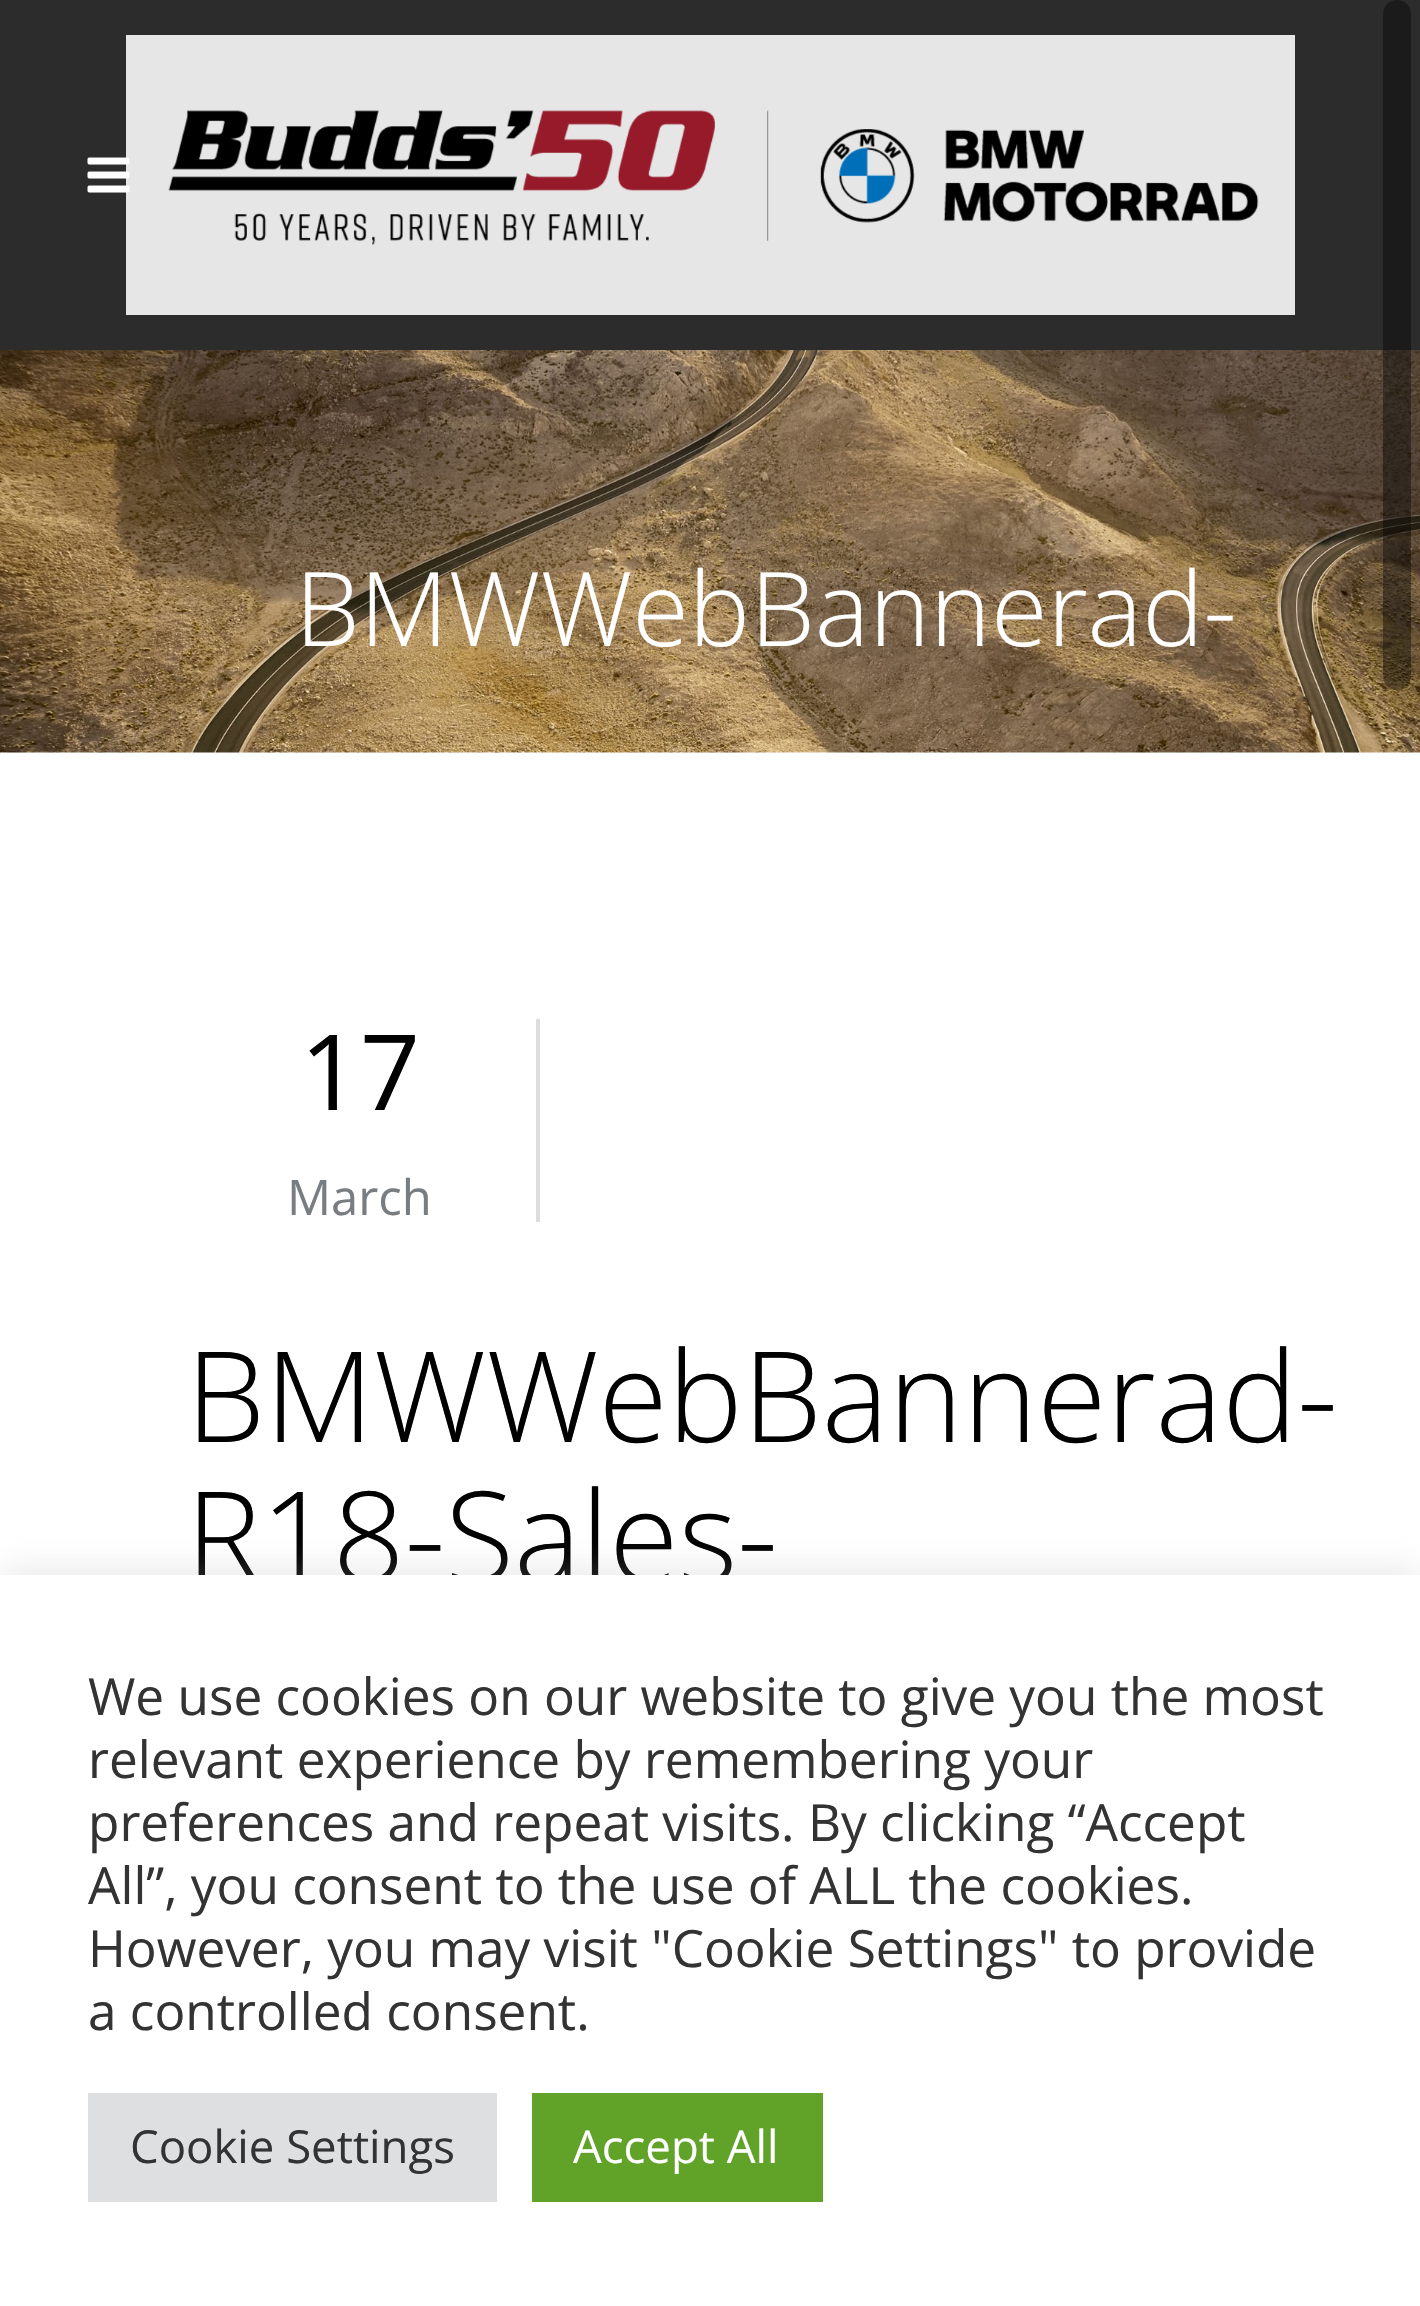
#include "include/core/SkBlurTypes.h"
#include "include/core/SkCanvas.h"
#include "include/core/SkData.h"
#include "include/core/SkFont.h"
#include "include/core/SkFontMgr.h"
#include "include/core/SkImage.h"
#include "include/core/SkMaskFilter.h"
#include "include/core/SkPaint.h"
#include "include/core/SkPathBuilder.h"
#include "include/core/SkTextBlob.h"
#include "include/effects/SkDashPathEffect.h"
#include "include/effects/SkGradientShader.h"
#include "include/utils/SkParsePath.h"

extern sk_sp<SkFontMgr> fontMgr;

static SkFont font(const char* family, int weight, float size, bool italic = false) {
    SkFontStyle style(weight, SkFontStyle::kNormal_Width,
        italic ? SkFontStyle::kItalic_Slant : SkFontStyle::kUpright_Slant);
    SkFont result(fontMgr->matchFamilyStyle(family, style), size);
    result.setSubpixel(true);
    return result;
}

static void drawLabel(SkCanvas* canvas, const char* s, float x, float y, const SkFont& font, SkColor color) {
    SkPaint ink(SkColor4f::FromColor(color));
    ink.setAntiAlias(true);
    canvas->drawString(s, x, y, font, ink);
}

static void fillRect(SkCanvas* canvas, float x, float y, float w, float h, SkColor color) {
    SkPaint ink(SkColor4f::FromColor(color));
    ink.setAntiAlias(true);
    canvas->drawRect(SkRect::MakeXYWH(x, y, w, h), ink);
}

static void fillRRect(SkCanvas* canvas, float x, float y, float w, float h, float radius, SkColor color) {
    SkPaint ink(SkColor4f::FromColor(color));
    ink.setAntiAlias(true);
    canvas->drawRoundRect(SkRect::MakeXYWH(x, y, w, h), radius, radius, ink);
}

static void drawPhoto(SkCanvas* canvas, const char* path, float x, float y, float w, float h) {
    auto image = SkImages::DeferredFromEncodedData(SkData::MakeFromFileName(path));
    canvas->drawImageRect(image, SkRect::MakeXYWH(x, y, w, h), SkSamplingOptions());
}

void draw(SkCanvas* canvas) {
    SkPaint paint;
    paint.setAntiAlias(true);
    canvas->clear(0xFFFFFFFF);
    fillRect(canvas, 0, 0, 1420, 350, 0xFF2C2C2C);
    drawPhoto(canvas, "assets/img3.png", 0, 350, 1420, 403);
    fillRRect(canvas, 1383, 0, 28, 690, 14, 0x66000000);
    drawPhoto(canvas, "assets/img2.png", 126, 35, 1169, 280);
    drawPhoto(canvas, "assets/img1.png", 87, 157, 43, 36);
    SkFont font1 = font("Open Sans", 300, 103);
    drawLabel(canvas, "BMWWebBannerad-", 295, 646, font1, 0xFFFFFFFF);
    fillRect(canvas, 536, 1019, 4, 203, 0xFFDDDDDD);
    SkFont font2 = font("Open Sans", 400, 105);
    drawLabel(canvas, "17", 300, 1110, font2, 0xFF000000);
    SkFont font3 = font("Open Sans", 400, 49);
    drawLabel(canvas, "March", 287, 1215, font3, 0xFF787D81);
    SkFont font4 = font("Open Sans", 300, 126);
    drawLabel(canvas, "BMWWebBannerad-", 186, 1442, font4, 0xFF000000);
    drawLabel(canvas, "R18-Sales-", 186, 1582, font4, 0xFF000000);
    paint.setColor(0x4DACABAB);
    paint.setMaskFilter(SkMaskFilter::MakeBlur(kNormal_SkBlurStyle, 17.5f));
    canvas->drawRect(SkRect::MakeXYWH(0, 1572, 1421, 731), paint);
    paint.setMaskFilter(nullptr);
    fillRect(canvas, 0, 1575, 1420, 731, 0xFFFFFFFF);
    SkFont font5 = font("Open Sans", 400, 51.3f);
    drawLabel(canvas, "We use cookies on our website to give you the most", 88, 1715, font5, 0xFF333333);
    drawLabel(canvas, "relevant experience by remembering your", 88, 1778, font5, 0xFF333333);
    drawLabel(canvas, "preferences and repeat visits. By clicking “Accept", 88, 1841, font5, 0xFF333333);
    drawLabel(canvas, "All”, you consent to the use of ALL the cookies.", 88, 1904, font5, 0xFF333333);
    drawLabel(canvas, "However, you may visit \"Cookie Settings\" to provide", 88, 1967, font5, 0xFF333333);
    drawLabel(canvas, "a controlled consent.", 88, 2030, font5, 0xFF333333);
    fillRect(canvas, 88, 2093, 409, 109, 0xFFDEDFE0);
    SkFont font6 = font("Open Sans", 400, 45.5f);
    drawLabel(canvas, "Cookie Settings", 130, 2163, font6, 0xFF333333);
    fillRect(canvas, 532, 2093, 291, 109, 0xFF61A229);
    drawLabel(canvas, "Accept All", 573, 2163, font6, 0xFFFFFFFF);
}
